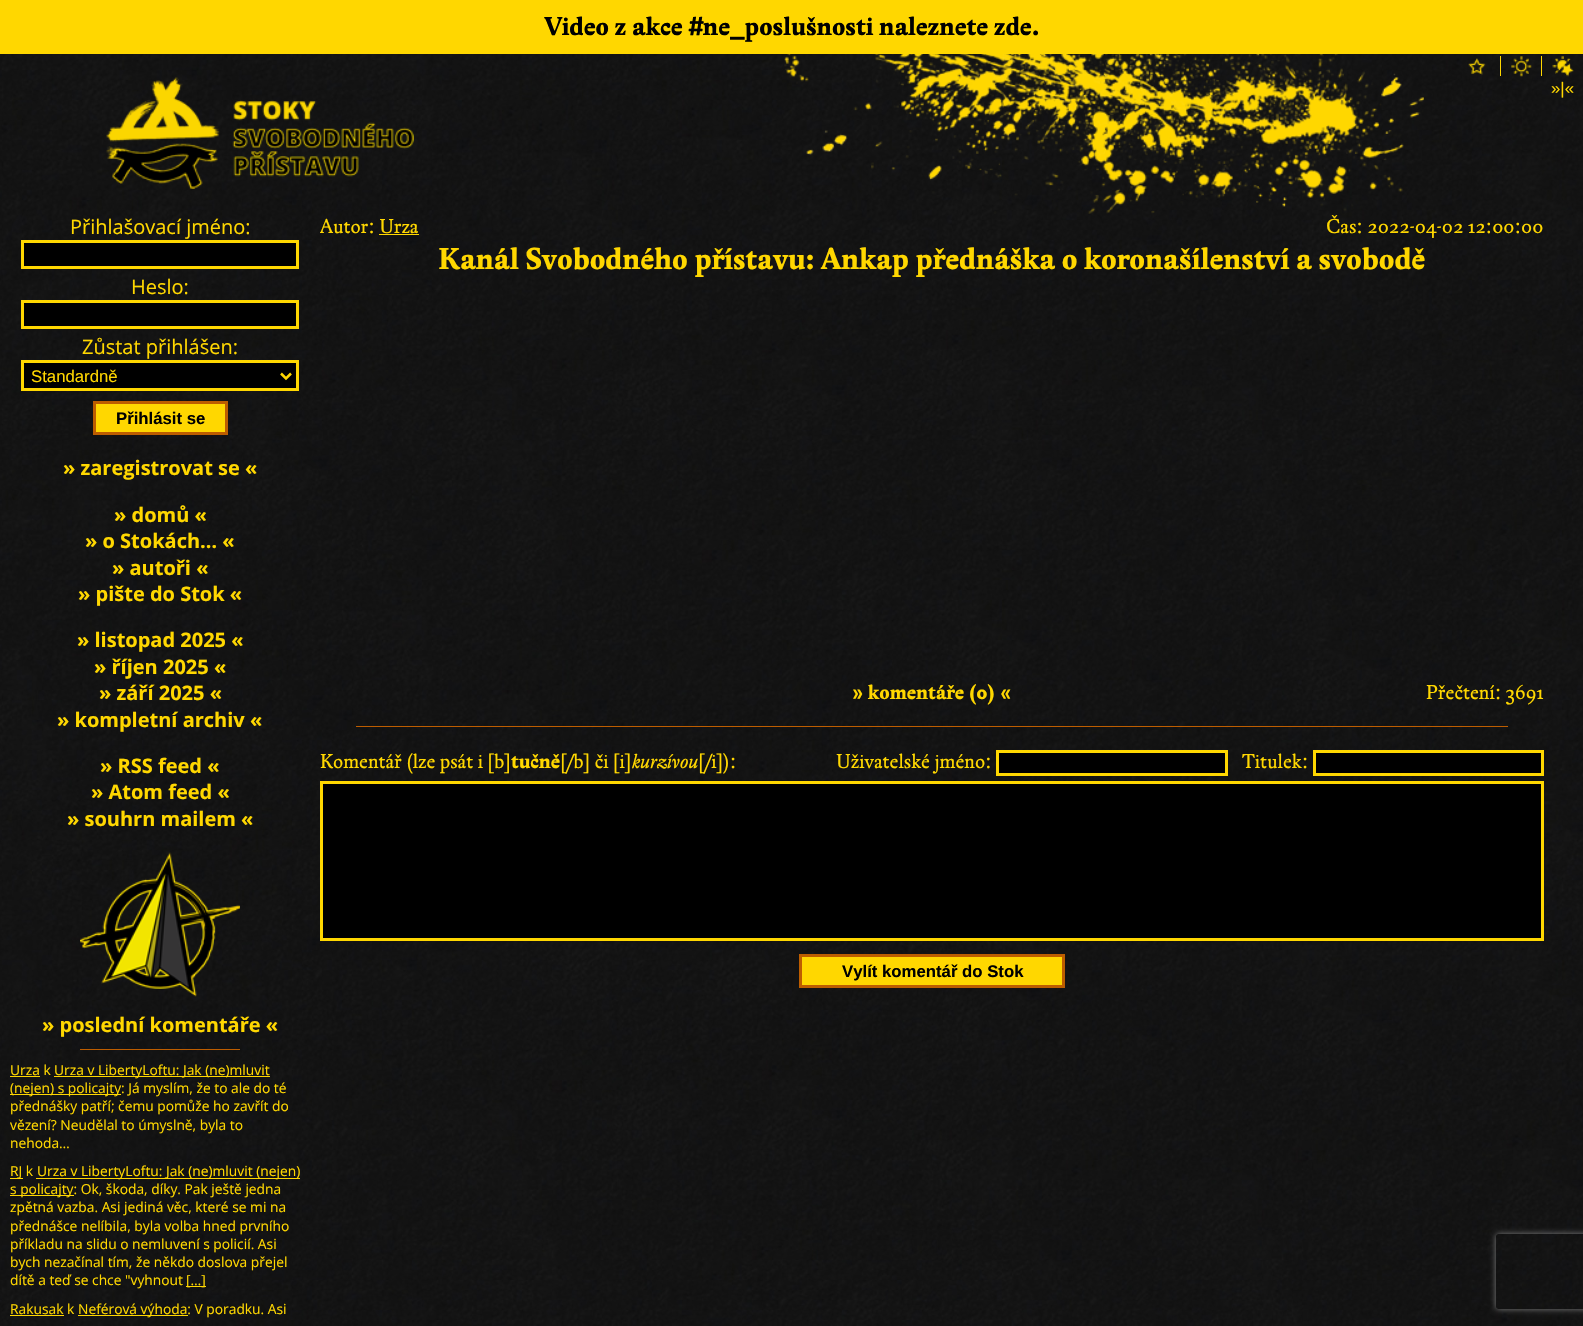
#include "include/core/SkBlurTypes.h"
#include "include/core/SkCanvas.h"
#include "include/core/SkData.h"
#include "include/core/SkFont.h"
#include "include/core/SkFontMgr.h"
#include "include/core/SkImage.h"
#include "include/core/SkMaskFilter.h"
#include "include/core/SkPaint.h"
#include "include/core/SkPathBuilder.h"
#include "include/core/SkTextBlob.h"
#include "include/effects/SkDashPathEffect.h"
#include "include/effects/SkGradientShader.h"
#include "include/utils/SkParsePath.h"

extern sk_sp<SkFontMgr> fontMgr;

static SkFont font(const char* family, int weight, float size, bool italic = false) {
    SkFontStyle style(weight, SkFontStyle::kNormal_Width,
        italic ? SkFontStyle::kItalic_Slant : SkFontStyle::kUpright_Slant);
    SkFont result(fontMgr->matchFamilyStyle(family, style), size);
    result.setSubpixel(true);
    return result;
}

static void drawLabel(SkCanvas* canvas, const char* s, float x, float y, const SkFont& font, SkColor color) {
    SkPaint ink(SkColor4f::FromColor(color));
    ink.setAntiAlias(true);
    canvas->drawString(s, x, y, font, ink);
}

static void fillRect(SkCanvas* canvas, float x, float y, float w, float h, SkColor color) {
    SkPaint ink(SkColor4f::FromColor(color));
    ink.setAntiAlias(true);
    canvas->drawRect(SkRect::MakeXYWH(x, y, w, h), ink);
}

static void drawPhoto(SkCanvas* canvas, const char* path, float x, float y, float w, float h) {
    auto image = SkImages::DeferredFromEncodedData(SkData::MakeFromFileName(path));
    canvas->drawImageRect(image, SkRect::MakeXYWH(x, y, w, h), SkSamplingOptions());
}

static SkPath parsePath(const char* data, bool evenOdd = false) {
    SkPath result = *SkParsePath::FromSVGString(data);
    if (evenOdd) result.setFillType(SkPathFillType::kEvenOdd);
    return result;
}

void draw(SkCanvas* canvas) {
    SkPaint paint;
    paint.setAntiAlias(true);
    canvas->clear(0xFFFFFFFF);
    drawPhoto(canvas, "assets/img1.png", 0, 54, 1583, 1272);
    fillRect(canvas, 0, 0, 1583, 54, 0xFFFFD700);
    SkFont font1 = font("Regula", 700, 25.6f);
    drawLabel(canvas, "Video z akce #ne_poslušnosti naleznete zde.", 545, 35, font1, 0xFF000000);
    drawPhoto(canvas, "assets/img2.png", 784, 53, 640, 161);
    drawPhoto(canvas, "assets/img3.png", 106, 77, 308, 112);
    drawPhoto(canvas, "assets/img4.png", 1468, 58, 18, 17);
    fillRect(canvas, 1541, 56, 1, 20, 0xFFFFD700);
    fillRect(canvas, 1500, 56, 1, 20, 0xFFFFD700);
    drawPhoto(canvas, "assets/img5.png", 1511, 56, 21, 21);
    drawPhoto(canvas, "assets/img6.png", 1552, 56, 22, 21);
    SkFont font2 = font("Liberation Sans", 400, 16.75f);
    drawLabel(canvas, "»|«", 1551, 94, font2, 0xFFFFD700);
    SkFont font3 = font("Open Sans", 400, 20);
    drawLabel(canvas, "Přihlašovací jméno:", 70, 234, font3, 0xFFFFD700);
    paint.setColor(0xFF000000);
    canvas->drawRect(SkRect::MakeXYWH(22.5f, 241.5f, 275, 26), paint);
    paint.setStroke(true);
    paint.setStrokeWidth(3);
    paint.setColor(0xFFFFD700);
    canvas->drawRect(SkRect::MakeXYWH(22.5f, 241.5f, 275, 26), paint);
    drawLabel(canvas, "Heslo:", 131, 294, font3, 0xFFFFD700);
    paint.setStroke(false);
    paint.setColor(0xFF000000);
    canvas->drawRect(SkRect::MakeXYWH(22.5f, 301.5f, 275, 26), paint);
    paint.setStroke(true);
    paint.setColor(0xFFFFD700);
    canvas->drawRect(SkRect::MakeXYWH(22.5f, 301.5f, 275, 26), paint);
    drawLabel(canvas, "Zůstat přihlášen:", 82, 354, font3, 0xFFFFD700);
    paint.setStroke(false);
    paint.setColor(0xFF000000);
    canvas->drawRect(SkRect::MakeXYWH(22.5f, 361.5f, 275, 28), paint);
    paint.setStroke(true);
    paint.setColor(0xFFFFD700);
    canvas->drawRect(SkRect::MakeXYWH(22.5f, 361.5f, 275, 28), paint);
    paint.setStrokeWidth(2.5f);
    canvas->drawPath(parsePath("M281 373.5L286 378.5L291 373.5"), paint);
    drawLabel(canvas, "Standardně", 31, 382, font2, 0xFFFFD700);
    paint.setStroke(false);
    canvas->drawRect(SkRect::MakeXYWH(94.5f, 402.5f, 132, 31), paint);
    paint.setStroke(true);
    paint.setStrokeWidth(3);
    paint.setColor(0xFFBD5D00);
    canvas->drawRect(SkRect::MakeXYWH(94.5f, 402.5f, 132, 31), paint);
    SkFont font4 = font("Liberation Sans", 700, 16.75f);
    drawLabel(canvas, "Přihlásit se", 116, 424, font4, 0xFF000000);
    SkFont font5 = font("Open Sans", 700, 20);
    drawLabel(canvas, "» zaregistrovat se «", 63, 475, font5, 0xFFFFD700);
    SkFont font6 = font("Regula", 400, 20);
    drawLabel(canvas, "Autor: Urza", 320, 233, font6, 0xFFFFD700);
    fillRect(canvas, 379, 234, 40, 1, 0xFFFFD700);
    drawLabel(canvas, "Čas: 2022-04-02 12:00:00", 1326, 233, font6, 0xFFFFD700);
    SkFont font7 = font("Regula", 700, 30);
    drawLabel(canvas, "Kanál Svobodného přístavu: Ankap přednáška o koronašílenství a svobodě", 438, 269, font7, 0xFFFFD700);
    SkFont font8 = font("Regula", 700, 20);
    drawLabel(canvas, "» komentáře (0) «", 852, 699, font8, 0xFFFFD700);
    drawLabel(canvas, "Přečtení: 3691", 1426, 699, font6, 0xFFFFD700);
    fillRect(canvas, 356, 726, 1152, 1, 0xFFBD5D00);
    drawLabel(canvas, "Komentář (lze psát i [b]", 320, 768, font6, 0xFFFFD700);
    drawLabel(canvas, "tučně", 511, 768, font8, 0xFFFFD700);
    drawLabel(canvas, "[/b] či [i]", 560, 768, font6, 0xFFFFD700);
    SkFont font9 = font("Regula", 400, 20, true);
    drawLabel(canvas, "kurzívou", 632, 768, font9, 0xFFFFD700);
    drawLabel(canvas, "[/i]):", 698, 768, font6, 0xFFFFD700);
    paint.setStroke(false);
    paint.setColor(0xFF000000);
    canvas->drawRect(SkRect::MakeXYWH(321.5f, 782.5f, 1221, 157), paint);
    paint.setStroke(true);
    paint.setColor(0xFFFFD700);
    canvas->drawRect(SkRect::MakeXYWH(321.5f, 782.5f, 1221, 157), paint);
    drawLabel(canvas, "Uživatelské jméno:", 836, 768, font6, 0xFFFFD700);
    paint.setStroke(false);
    paint.setColor(0xFF000000);
    canvas->drawRect(SkRect::MakeXYWH(997.5f, 751.5f, 229, 23), paint);
    paint.setStroke(true);
    paint.setColor(0xFFFFD700);
    canvas->drawRect(SkRect::MakeXYWH(997.5f, 751.5f, 229, 23), paint);
    drawLabel(canvas, "Titulek:", 1242, 768, font6, 0xFFFFD700);
    paint.setStroke(false);
    paint.setColor(0xFF000000);
    canvas->drawRect(SkRect::MakeXYWH(1314.5f, 751.5f, 228, 23), paint);
    paint.setStroke(true);
    paint.setColor(0xFFFFD700);
    canvas->drawRect(SkRect::MakeXYWH(1314.5f, 751.5f, 228, 23), paint);
    paint.setStroke(false);
    canvas->drawRect(SkRect::MakeXYWH(800.5f, 955.5f, 263, 31), paint);
    paint.setStroke(true);
    paint.setColor(0xFFBD5D00);
    canvas->drawRect(SkRect::MakeXYWH(800.5f, 955.5f, 263, 31), paint);
    drawLabel(canvas, "Vylít komentář do Stok", 842, 977, font4, 0xFF000000);
    canvas->save();
    canvas->clipPath(parsePath("M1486 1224H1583V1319H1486ZM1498.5 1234H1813.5C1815 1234 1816 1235 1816 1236.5V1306.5C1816 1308 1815 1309 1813.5 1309H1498.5C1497 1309 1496 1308 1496 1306.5V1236.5C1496 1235 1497 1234 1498.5 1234Z", true), true);
    paint.setStroke(false);
    paint.setColor(0xFF808080);
    paint.setMaskFilter(SkMaskFilter::MakeBlur(kNormal_SkBlurStyle, 3));
    canvas->drawRoundRect(SkRect::MakeXYWH(1496, 1234, 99, 75), 2.5f, 2.5f, paint);
    paint.setMaskFilter(nullptr);
    canvas->restore();
    drawLabel(canvas, "» domů «", 114, 522, font5, 0xFFFFD700);
    drawLabel(canvas, "» o Stokách… «", 85, 548, font5, 0xFFFFD700);
    drawLabel(canvas, "» autoři «", 112, 575, font5, 0xFFFFD700);
    drawLabel(canvas, "» pište do Stok «", 78, 601, font5, 0xFFFFD700);
    drawLabel(canvas, "» listopad 2025 «", 77, 647, font5, 0xFFFFD700);
    drawLabel(canvas, "» říjen 2025 «", 94, 674, font5, 0xFFFFD700);
    drawLabel(canvas, "» září 2025 «", 99, 700, font5, 0xFFFFD700);
    drawLabel(canvas, "» kompletní archiv «", 57, 727, font5, 0xFFFFD700);
    drawLabel(canvas, "» RSS feed «", 100, 773, font5, 0xFFFFD700);
    drawLabel(canvas, "» Atom feed «", 91, 799, font5, 0xFFFFD700);
    drawLabel(canvas, "» souhrn mailem «", 67, 826, font5, 0xFFFFD700);
    drawPhoto(canvas, "assets/img7.png", 80, 852, 160, 145);
    drawLabel(canvas, "» poslední komentáře «", 42, 1032, font5, 0xFFFFD700);
    fillRect(canvas, 80, 1049, 160, 1, 0xFFBD5D00);
    SkFont font10 = font("Open Sans", 400, 13.8f);
    drawLabel(canvas, "Urza k", 10, 1075, font10, 0xFFFFD700);
    fillRect(canvas, 10, 1076, 30, 1, 0xFFFFD700);
    fillRect(canvas, 54, 1076, 216, 1, 0xFFFFD700);
    drawLabel(canvas, "Urza v LibertyLoftu: Jak (ne)mluvit", 54, 1075, font10, 0xFFFFD700);
    fillRect(canvas, 10, 1094, 111, 1, 0xFFFFD700);
    drawLabel(canvas, "(nejen) s policajty: Já myslím, že to ale do té", 10, 1093, font10, 0xFFFFD700);
    drawLabel(canvas, "přednášky patří; čemu pomůže ho zavřít do", 10, 1111, font10, 0xFFFFD700);
    drawLabel(canvas, "vězení? Neudělal to úmyslně, byla to", 10, 1130, font10, 0xFFFFD700);
    drawLabel(canvas, "nehoda…", 10, 1148, font10, 0xFFFFD700);
    fillRect(canvas, 10, 1178, 13, 1, 0xFFFFD700);
    drawLabel(canvas, "RJ k", 10, 1176, font10, 0xFFFFD700);
    fillRect(canvas, 36, 1178, 264, 1, 0xFFFFD700);
    drawLabel(canvas, "Urza v LibertyLoftu: Jak (ne)mluvit (nejen)", 37, 1176, font10, 0xFFFFD700);
    fillRect(canvas, 10, 1195, 64, 1, 0xFFFFD700);
    drawLabel(canvas, "s policajty: Ok, škoda, díky. Pak ještě jedna", 10, 1194, font10, 0xFFFFD700);
    drawLabel(canvas, "zpětná vazba. Asi jediná věc, které se mi na", 10, 1212, font10, 0xFFFFD700);
    drawLabel(canvas, "přednášce nelíbila, byla volba hned prvního", 10, 1231, font10, 0xFFFFD700);
    drawLabel(canvas, "příkladu na slidu o nemluvení s policií. Asi", 10, 1249, font10, 0xFFFFD700);
    drawLabel(canvas, "bych nezačínal tím, že někdo doslova přejel", 10, 1267, font10, 0xFFFFD700);
    drawLabel(canvas, "dítě a teď se chce \"vyhnout", 10, 1285, font10, 0xFFFFD700);
    fillRect(canvas, 186, 1286, 20, 1, 0xFFFFD700);
    drawLabel(canvas, "[…]", 186, 1285, font10, 0xFFFFD700);
    drawLabel(canvas, "Rakusak k", 10, 1314, font10, 0xFFFFD700);
    fillRect(canvas, 10, 1315, 54, 1, 0xFFFFD700);
    fillRect(canvas, 78, 1315, 110, 1, 0xFFFFD700);
    drawLabel(canvas, "Neférová výhoda: V poradku. Asi", 78, 1314, font10, 0xFFFFD700);
}
